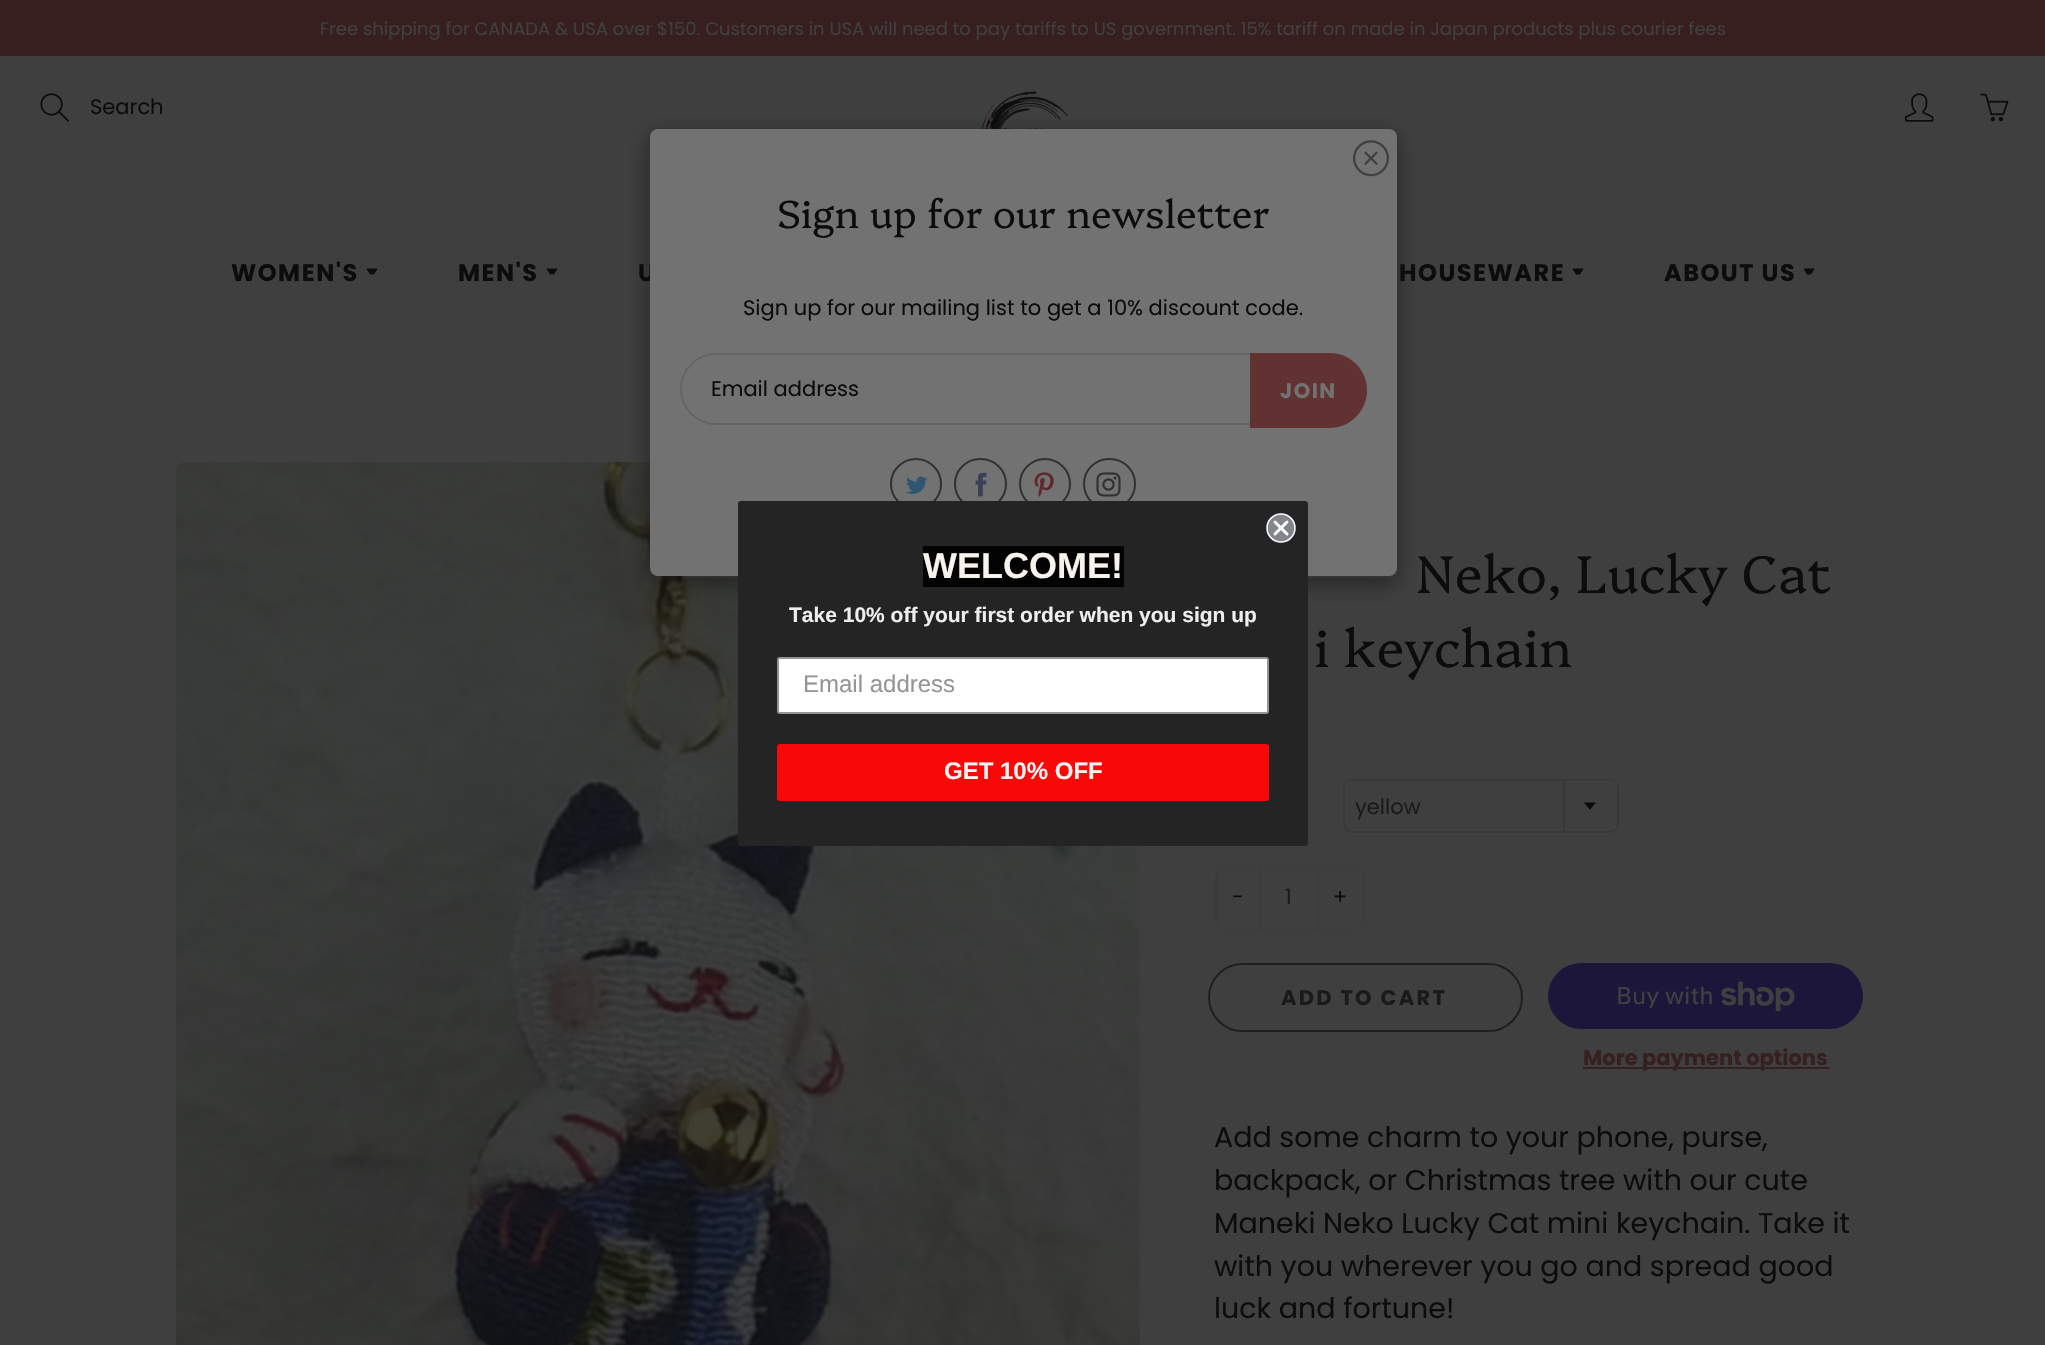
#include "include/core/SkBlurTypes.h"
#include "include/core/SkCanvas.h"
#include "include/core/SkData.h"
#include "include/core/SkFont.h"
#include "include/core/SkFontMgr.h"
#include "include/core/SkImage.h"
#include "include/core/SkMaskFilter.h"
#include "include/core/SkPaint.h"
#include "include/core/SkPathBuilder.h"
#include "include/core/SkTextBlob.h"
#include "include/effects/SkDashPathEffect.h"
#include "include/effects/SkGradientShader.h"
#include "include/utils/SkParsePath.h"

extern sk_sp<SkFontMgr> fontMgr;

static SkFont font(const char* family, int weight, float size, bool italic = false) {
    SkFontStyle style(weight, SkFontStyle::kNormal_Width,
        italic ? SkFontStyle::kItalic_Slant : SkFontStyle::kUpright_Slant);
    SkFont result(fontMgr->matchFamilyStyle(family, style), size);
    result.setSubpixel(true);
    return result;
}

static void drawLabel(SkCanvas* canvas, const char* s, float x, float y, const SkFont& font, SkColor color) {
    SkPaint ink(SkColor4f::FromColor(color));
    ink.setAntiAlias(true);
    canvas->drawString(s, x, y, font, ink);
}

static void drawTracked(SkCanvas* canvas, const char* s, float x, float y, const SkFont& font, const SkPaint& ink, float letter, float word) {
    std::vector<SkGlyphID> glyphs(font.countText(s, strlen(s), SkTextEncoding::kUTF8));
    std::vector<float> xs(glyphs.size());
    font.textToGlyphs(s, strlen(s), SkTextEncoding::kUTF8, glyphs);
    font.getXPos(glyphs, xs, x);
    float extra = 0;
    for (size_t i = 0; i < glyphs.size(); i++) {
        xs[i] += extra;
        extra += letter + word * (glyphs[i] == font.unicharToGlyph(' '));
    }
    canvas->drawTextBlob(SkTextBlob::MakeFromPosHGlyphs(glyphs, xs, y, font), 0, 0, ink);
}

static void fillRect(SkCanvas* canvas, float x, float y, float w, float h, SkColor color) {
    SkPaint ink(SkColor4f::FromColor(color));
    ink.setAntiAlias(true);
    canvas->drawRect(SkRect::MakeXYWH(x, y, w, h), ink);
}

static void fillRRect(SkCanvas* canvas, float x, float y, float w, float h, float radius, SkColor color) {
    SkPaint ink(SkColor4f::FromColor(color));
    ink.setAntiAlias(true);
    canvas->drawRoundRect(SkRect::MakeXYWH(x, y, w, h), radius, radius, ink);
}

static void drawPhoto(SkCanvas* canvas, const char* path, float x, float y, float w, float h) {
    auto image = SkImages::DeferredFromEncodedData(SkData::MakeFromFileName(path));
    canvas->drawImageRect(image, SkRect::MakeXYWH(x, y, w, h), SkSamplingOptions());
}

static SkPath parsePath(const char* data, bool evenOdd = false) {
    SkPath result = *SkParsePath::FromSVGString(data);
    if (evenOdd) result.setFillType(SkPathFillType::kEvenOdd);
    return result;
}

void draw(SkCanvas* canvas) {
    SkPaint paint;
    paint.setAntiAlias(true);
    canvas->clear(0xFF3F3F3F);
    fillRect(canvas, 0, 0, 2045, 56, 0xFF371E1F);
    SkFont font1 = font("Poppins", 400, 18);
    drawLabel(canvas, "Free shipping for CANADA & USA over $150. Customers in USA will need to pay tariffs to US government. 15% tariff on made in Japan products plus courier fees", 320, 35, font1, 0xFF3F3F3F);
    drawPhoto(canvas, "assets/img1.png", 40, 93, 29, 29);
    SkFont font2 = font("Poppins", 400, 21);
    drawLabel(canvas, "Search", 90, 114, font2, 0xFF0C0C0C);
    drawPhoto(canvas, "assets/img2.png", 981, 91, 87, 38);
    drawPhoto(canvas, "assets/img3.png", 1905, 93, 29, 29);
    drawPhoto(canvas, "assets/img4.png", 1980, 93, 29, 29);
    SkFont font3 = font("Poppins", 700, 24);
    paint.setColor(0xFF0C0C0C);
    drawTracked(canvas, "WOMEN'S", 231, 281, font3, paint, 1.5f, 0);
    canvas->drawPath(parsePath("M367.5 268.5L366.5 269L370 274.5H374L377.5 269C377 268.5 376.5 268.5 375 268.5Z"), paint);
    drawTracked(canvas, "MEN'S", 458, 281, font3, paint, 1.5f, 0);
    canvas->drawPath(parsePath("M547.5 268.5L546.5 269L550 274.5H554L557.5 269C557 268.5 556.5 268.5 555 268.5Z"), paint);
    drawTracked(canvas, "U", 638, 281, font3, paint, 1.5f, 0);
    drawTracked(canvas, "HOUSEWARE", 1399, 281, font3, paint, 1.5f, 0);
    canvas->drawPath(parsePath("M1573.5 268.5L1572.5 269L1576 274.5H1580L1583.5 269C1583 268.5 1582.5 268.5 1581 268.5Z"), paint);
    drawTracked(canvas, "ABOUT US", 1664, 281, font3, paint, 1.5f, 0);
    canvas->drawPath(parsePath("M1804.5 268.5L1803.5 269L1807 274.5H1811L1814.5 269C1814 268.5 1813.5 268.5 1812 268.5Z"), paint);
    drawPhoto(canvas, "assets/img10.png", 176, 462, 965, 883);
    canvas->save();
    canvas->clipPath(parsePath("M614 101H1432V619H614ZM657 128H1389C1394 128 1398 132 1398 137V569C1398 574 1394 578 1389 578H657C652 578 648 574 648 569V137C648 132 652 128 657 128Z", true), true);
    paint.setColor(0x800C0C0C);
    paint.setMaskFilter(SkMaskFilter::MakeBlur(kNormal_SkBlurStyle, 11));
    canvas->drawRoundRect(SkRect::MakeXYWH(648, 135, 750, 450), 9, 9, paint);
    paint.setMaskFilter(nullptr);
    canvas->restore();
    paint.setStroke(true);
    paint.setStrokeWidth(2);
    paint.setColor(0x330C0C0C);
    canvas->drawRoundRect(SkRect::MakeXYWH(649, 129, 748, 448), 8, 8, paint);
    fillRRect(canvas, 650, 129, 747, 447, 8, 0xFF727272);
    drawPhoto(canvas, "assets/img5.png", 1353, 140, 36, 37);
    SkFont font4 = font("Platypi", 300, 39);
    drawLabel(canvas, "Sign up for our newsletter", 777, 228, font4, 0xFF0C0C0C);
    drawLabel(canvas, "Sign up for our mailing list to get a 10% discount code.", 743, 315, font2, 0xFF0C0C0C);
    paint.setColor(0xFF646464);
    canvas->drawRoundRect(SkRect::MakeXYWH(681, 354, 685, 70), 35, 35, paint);
    drawLabel(canvas, "Email address", 711, 396, font2, 0xFF0C0C0C);
    paint.setStroke(false);
    paint.setColor(0xFF623132);
    canvas->drawPath(parsePath("M1250 353H1329.5C1350 353 1367 370 1367 390.5C1367 411 1350 428 1329.5 428H1250Z"), paint);
    SkFont font5 = font("Poppins", 700, 21);
    paint.setColor(0xFF727272);
    drawTracked(canvas, "JOIN", 1280, 398, font5, paint, 1.5f, 0);
    paint.setStroke(true);
    paint.setColor(0xFF313131);
    canvas->drawCircle(916, 484, 25, paint);
    drawPhoto(canvas, "assets/img6.png", 906, 476, 22, 18);
    canvas->drawRoundRect(SkRect::MakeXYWH(955, 459, 51, 50), 25, 25, paint);
    drawPhoto(canvas, "assets/img7.png", 975, 472, 12, 25);
    canvas->drawCircle(1045, 484, 25, paint);
    drawPhoto(canvas, "assets/img8.png", 1034, 472, 20, 26);
    canvas->drawRoundRect(SkRect::MakeXYWH(1084, 459, 51, 50), 25, 25, paint);
    drawPhoto(canvas, "assets/img9.png", 1096, 472, 25, 25);
    SkFont font6 = font("Platypi", 300, 52.75f);
    drawLabel(canvas, "Neko, Lucky Cat", 1416, 593, font6, 0xFF0C0C0C);
    drawLabel(canvas, "i keychain", 1314, 667, font6, 0xFF0C0C0C);
    paint.setColor(0xFF383838);
    canvas->drawRoundRect(SkRect::MakeXYWH(1344, 780, 274, 52), 8, 8, paint);
    drawLabel(canvas, "yellow", 1355, 814, font2, 0xFF1A1A1A);
    paint.setStroke(false);
    paint.setColor(0xFF3F3F3F);
    canvas->drawPath(parsePath("M1563 780H1608C1613 780 1617 784 1617 789V822C1617 827 1613 831 1608 831H1563Z"), paint);
    fillRect(canvas, 1563, 780, 2, 51, 0xFF383838);
    paint.setColor(0xFF0C0C0C);
    canvas->drawPath(parsePath("M1584 802.5H1596L1590 810Z"), paint);
    paint.setStroke(true);
    paint.setColor(0xFF3C3C3C);
    canvas->drawRoundRect(SkRect::MakeXYWH(1216, 867, 147, 62), 8, 8, paint);
    paint.setStroke(false);
    paint.setColor(0xFF3F3F3F);
    canvas->drawPath(parsePath("M1225 867H1260V929H1225C1220.5 929 1217 925.5 1217 921V875C1217 870.5 1220.5 867 1225 867Z"), paint);
    drawLabel(canvas, "-", 1232, 904, font2, 0xFF0C0C0C);
    fillRect(canvas, 1262, 867, 55, 62, 0xFF3F3F3F);
    fillRect(canvas, 1317, 867, 2, 62, 0xFF3C3C3C);
    fillRect(canvas, 1260, 867, 2, 62, 0xFF3C3C3C);
    drawLabel(canvas, "1", 1285, 904, font2, 0xFF1A1A1A);
    canvas->drawPath(parsePath("M1319 867H1354C1358.5 867 1362 870.5 1362 875V921C1362 925.5 1358.5 929 1354 929H1319Z"), paint);
    drawLabel(canvas, "+", 1333, 904, font2, 0xFF0C0C0C);
    paint.setStroke(true);
    paint.setColor(0xFF1E1E1E);
    canvas->drawRoundRect(SkRect::MakeXYWH(1209, 964, 313, 67), 33.5f, 33.5f, paint);
    paint.setStroke(false);
    paint.setColor(0xFF1A1A1A);
    drawTracked(canvas, "ADD TO CART", 1281, 1005, font5, paint, 2.25f, 0);
    fillRRect(canvas, 1548, 963, 315, 66, 33, 0xFF1D163B);
    SkFont font7 = font("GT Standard", 400, 24);
    drawLabel(canvas, "Buy with", 1616, 1004, font7, 0xFF3F3F3F);
    drawPhoto(canvas, "assets/img11.png", 1721, 981, 74, 30);
    fillRect(canvas, 1583, 1067, 246, 2, 0xFF371E1F);
    drawLabel(canvas, "More payment options", 1583, 1065, font5, 0xFF371E1F);
    SkFont font8 = font("Poppins", 400, 28.5f);
    drawLabel(canvas, "Add some charm to your phone, purse,", 1214, 1147, font8, 0xFF0C0C0C);
    drawLabel(canvas, "backpack, or Christmas tree with our cute", 1214, 1190, font8, 0xFF0C0C0C);
    drawLabel(canvas, "Maneki Neko Lucky Cat mini keychain. Take it", 1214, 1233, font8, 0xFF0C0C0C);
    drawLabel(canvas, "with you wherever you go and spread good", 1214, 1276, font8, 0xFF0C0C0C);
    drawLabel(canvas, "luck and fortune!", 1214, 1318, font8, 0xFF0C0C0C);
    fillRRect(canvas, 738, 501, 570, 345, 3, 0xFF242424);
    paint.setColor(0xFF82868B);
    canvas->drawCircle(1281, 528, 14, paint);
    paint.setStroke(true);
    paint.setStrokeWidth(1.5f);
    paint.setColor(0xFFFFFFFF);
    canvas->drawCircle(1281, 528, 14, paint);
    paint.setStrokeWidth(3);
    paint.setStrokeCap(SkPaint::kRound_Cap);
    paint.setStrokeJoin(SkPaint::kRound_Join);
    canvas->drawPath(parsePath("M1275 522L1287 534M1275 534L1287 522Z"), paint);
    fillRect(canvas, 923, 546, 201, 41, 0xFF030303);
    SkFont font9 = font("Liberation Sans", 700, 36);
    drawLabel(canvas, "WELCOME!", 923, 578, font9, 0xFFF5F3EC);
    SkFont font10 = font("Liberation Sans", 700, 21);
    drawLabel(canvas, "Take 10% off your first order when you sign up", 789, 622, font10, 0xFFEEEEEE);
    paint.setStroke(false);
    canvas->drawRoundRect(SkRect::MakeXYWH(778, 658, 490, 55), 2, 2, paint);
    paint.setStroke(true);
    paint.setStrokeWidth(2);
    paint.setStrokeCap(SkPaint::kButt_Cap);
    paint.setStrokeJoin(SkPaint::kMiter_Join);
    paint.setColor(0xFF949596);
    canvas->drawRoundRect(SkRect::MakeXYWH(778, 658, 490, 55), 2, 2, paint);
    SkFont font11 = font("Liberation Sans", 400, 24);
    drawLabel(canvas, "Email address", 803, 692, font11, 0xFF949596);
    fillRRect(canvas, 777, 744, 492, 57, 3, 0xFFF90808);
    SkFont font12 = font("Liberation Sans", 700, 24);
    drawLabel(canvas, "GET 10% OFF", 944, 779, font12, 0xFFF7F3F3);
}
